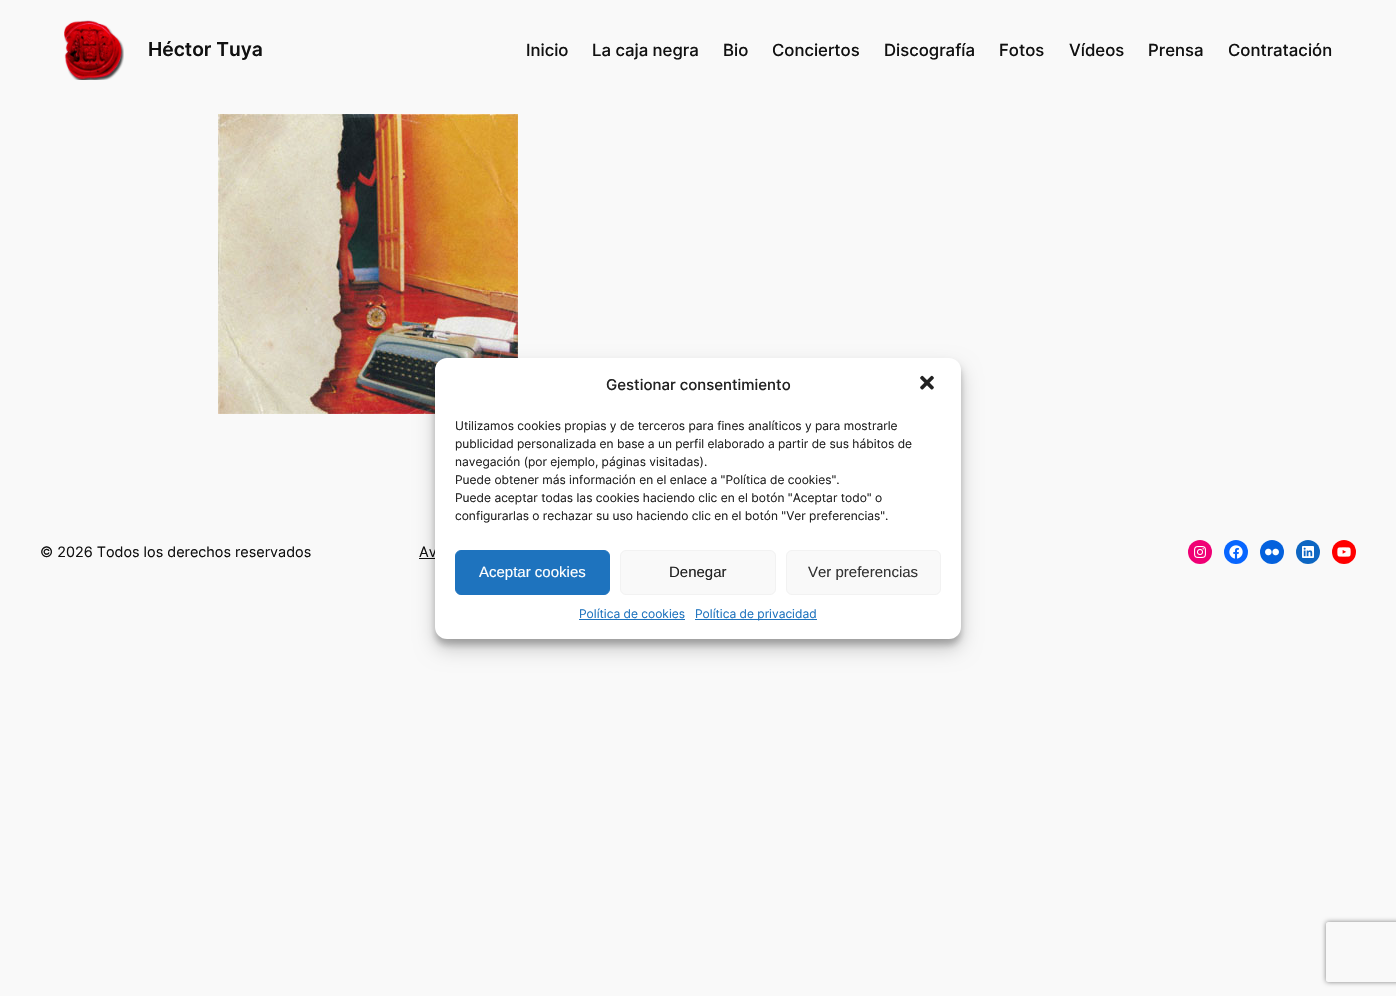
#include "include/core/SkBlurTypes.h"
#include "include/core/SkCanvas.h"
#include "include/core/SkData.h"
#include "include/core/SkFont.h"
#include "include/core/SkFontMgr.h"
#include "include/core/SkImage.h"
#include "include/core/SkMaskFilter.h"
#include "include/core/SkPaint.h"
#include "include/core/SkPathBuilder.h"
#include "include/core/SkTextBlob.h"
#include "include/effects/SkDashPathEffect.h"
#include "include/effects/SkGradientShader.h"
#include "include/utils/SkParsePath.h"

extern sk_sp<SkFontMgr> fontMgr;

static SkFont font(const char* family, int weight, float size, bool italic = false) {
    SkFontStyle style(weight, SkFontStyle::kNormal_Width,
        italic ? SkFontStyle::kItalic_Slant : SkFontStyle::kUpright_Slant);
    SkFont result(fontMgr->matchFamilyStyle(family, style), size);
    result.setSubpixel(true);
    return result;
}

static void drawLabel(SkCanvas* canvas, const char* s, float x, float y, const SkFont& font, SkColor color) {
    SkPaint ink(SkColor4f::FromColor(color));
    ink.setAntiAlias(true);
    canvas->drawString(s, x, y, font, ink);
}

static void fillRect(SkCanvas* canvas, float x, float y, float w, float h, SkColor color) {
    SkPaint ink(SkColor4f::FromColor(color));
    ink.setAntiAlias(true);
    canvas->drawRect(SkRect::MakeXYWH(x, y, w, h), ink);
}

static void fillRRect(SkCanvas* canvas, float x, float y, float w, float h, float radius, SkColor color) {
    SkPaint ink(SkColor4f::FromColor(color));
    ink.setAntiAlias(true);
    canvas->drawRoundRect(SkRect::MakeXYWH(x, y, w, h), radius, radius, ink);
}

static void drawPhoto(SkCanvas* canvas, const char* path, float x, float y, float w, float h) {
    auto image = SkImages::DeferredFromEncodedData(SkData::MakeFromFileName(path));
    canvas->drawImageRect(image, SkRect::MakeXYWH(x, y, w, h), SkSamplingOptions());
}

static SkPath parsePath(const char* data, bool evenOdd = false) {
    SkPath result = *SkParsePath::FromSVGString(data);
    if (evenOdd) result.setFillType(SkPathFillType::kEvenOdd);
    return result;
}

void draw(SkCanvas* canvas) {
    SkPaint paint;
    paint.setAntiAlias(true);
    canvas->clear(0xFFF9F9F9);
    drawPhoto(canvas, "assets/img1.png", 64, 20, 60, 60);
    SkFont font1 = font("Inter", 600, 19.25f);
    drawLabel(canvas, "Héctor Tuya", 148, 56, font1, 0xFF111111);
    SkFont font2 = font("Inter", 500, 16.75f);
    drawLabel(canvas, "Inicio", 526, 56, font2, 0xFF111111);
    drawLabel(canvas, "La caja negra", 592, 56, font2, 0xFF111111);
    drawLabel(canvas, "Bio", 723, 56, font2, 0xFF111111);
    drawLabel(canvas, "Conciertos", 772, 56, font2, 0xFF111111);
    drawLabel(canvas, "Discografía", 884, 56, font2, 0xFF111111);
    drawLabel(canvas, "Fotos", 999, 56, font2, 0xFF111111);
    drawLabel(canvas, "Vídeos", 1069, 56, font2, 0xFF111111);
    drawLabel(canvas, "Prensa", 1148, 56, font2, 0xFF111111);
    drawLabel(canvas, "Contratación", 1228, 56, font2, 0xFF111111);
    drawPhoto(canvas, "assets/img2.png", 218, 114, 300, 300);
    SkFont font3 = font("Inter", 400, 14.4f);
    drawLabel(canvas, "© 2026 Todos los derechos reservados", 40, 557, font3, 0xFF111111);
    drawLabel(canvas, "Av", 419, 557, font3, 0xFF111111);
    fillRect(canvas, 419, 558, 16, 1, 0xFF111111);
    paint.setColor(0xFFF00075);
    canvas->drawCircle(1200, 552, 12, paint);
    drawPhoto(canvas, "assets/img3.png", 1194, 546, 12, 12);
    paint.setColor(0xFF0866FF);
    canvas->drawCircle(1236, 552, 12, paint);
    drawPhoto(canvas, "assets/img4.png", 1229, 545, 14, 14);
    paint.setColor(0xFF0461DD);
    canvas->drawCircle(1272, 552, 12, paint);
    drawPhoto(canvas, "assets/img5.png", 1265, 548, 14, 8);
    paint.setColor(0xFF0D66C2);
    canvas->drawCircle(1308, 552, 12, paint);
    drawPhoto(canvas, "assets/img6.png", 1302, 546, 12, 12);
    paint.setColor(0xFFFF0000);
    canvas->drawCircle(1344, 552, 12, paint);
    drawPhoto(canvas, "assets/img7.png", 1337, 547, 14, 10);
    paint.setColor(0x3B000000);
    paint.setMaskFilter(SkMaskFilter::MakeBlur(kNormal_SkBlurStyle, 3));
    canvas->drawRoundRect(SkRect::MakeXYWH(435, 364, 526, 281), 12, 12, paint);
    paint.setMaskFilter(nullptr);
    paint.setColor(0x30000000);
    paint.setMaskFilter(SkMaskFilter::MakeBlur(kNormal_SkBlurStyle, 10));
    canvas->drawRoundRect(SkRect::MakeXYWH(435, 368, 526, 281), 12, 12, paint);
    paint.setMaskFilter(nullptr);
    fillRRect(canvas, 435, 358, 526, 281, 12, 0xFFFFFFFF);
    SkFont font4 = font("Inter", 500, 15);
    drawLabel(canvas, "Gestionar consentimiento", 606, 390, font4, 0xFF222222);
    drawPhoto(canvas, "assets/img8.png", 920, 375, 14, 15);
    SkFont font5 = font("Inter", 400, 12);
    drawLabel(canvas, "Utilizamos cookies propias y de terceros para fines analíticos y para mostrarle", 455, 430, font5, 0xFF222222);
    drawLabel(canvas, "publicidad personalizada en base a un perfil elaborado a partir de sus hábitos de", 455, 448, font5, 0xFF222222);
    drawLabel(canvas, "navegación (por ejemplo, páginas visitadas).", 455, 466, font5, 0xFF222222);
    drawLabel(canvas, "Puede obtener más información en el enlace a \"Política de cookies\".", 455, 484, font5, 0xFF222222);
    drawLabel(canvas, "Puede aceptar todas las cookies haciendo clic en el botón \"Aceptar todo\" o", 455, 502, font5, 0xFF222222);
    drawLabel(canvas, "configurarlas o rechazar su uso haciendo clic en el botón \"Ver preferencias\".", 455, 520, font5, 0xFF222222);
    paint.setColor(0xFF1E73BE);
    canvas->drawRoundRect(SkRect::MakeXYWH(455.5f, 550.5f, 154, 44), 5.5f, 5.5f, paint);
    paint.setStroke(true);
    paint.setStrokeWidth(1);
    canvas->drawRoundRect(SkRect::MakeXYWH(455.5f, 550.5f, 154, 44), 5.5f, 5.5f, paint);
    SkFont font6 = font("Liberation Sans", 400, 15);
    drawLabel(canvas, "Aceptar cookies", 479, 577, font6, 0xFFFFFFFF);
    paint.setStroke(false);
    paint.setColor(0xFFF9F9F9);
    canvas->drawRoundRect(SkRect::MakeXYWH(620.5f, 550.5f, 155, 44), 5.5f, 5.5f, paint);
    paint.setStroke(true);
    paint.setColor(0xFFF2F2F2);
    canvas->drawRoundRect(SkRect::MakeXYWH(620.5f, 550.5f, 155, 44), 5.5f, 5.5f, paint);
    drawLabel(canvas, "Denegar", 669, 577, font6, 0xFF222222);
    paint.setStroke(false);
    paint.setColor(0xFFF9F9F9);
    canvas->drawRoundRect(SkRect::MakeXYWH(786.5f, 550.5f, 154, 44), 5.5f, 5.5f, paint);
    paint.setStroke(true);
    paint.setColor(0xFFF2F2F2);
    canvas->drawRoundRect(SkRect::MakeXYWH(786.5f, 550.5f, 154, 44), 5.5f, 5.5f, paint);
    drawLabel(canvas, "Ver preferencias", 808, 577, font6, 0xFF333333);
    drawLabel(canvas, "Política de cookies", 579, 618, font5, 0xFF1E73BE);
    fillRect(canvas, 579, 619, 106, 1, 0xFF1E73BE);
    fillRect(canvas, 695, 619, 122, 1, 0xFF1E73BE);
    drawLabel(canvas, "Política de privacidad", 695, 618, font5, 0xFF1E73BE);
    canvas->save();
    canvas->clipPath(parsePath("M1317 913H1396V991H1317ZM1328 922H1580C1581 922 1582 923 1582 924V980C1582 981 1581 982 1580 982H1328C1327 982 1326 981 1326 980V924C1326 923 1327 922 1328 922Z", true), true);
    paint.setStroke(false);
    paint.setColor(0xFF808080);
    paint.setMaskFilter(SkMaskFilter::MakeBlur(kNormal_SkBlurStyle, 2.5f));
    canvas->drawRoundRect(SkRect::MakeXYWH(1326, 922, 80, 60), 2, 2, paint);
    paint.setMaskFilter(nullptr);
    canvas->restore();
}
